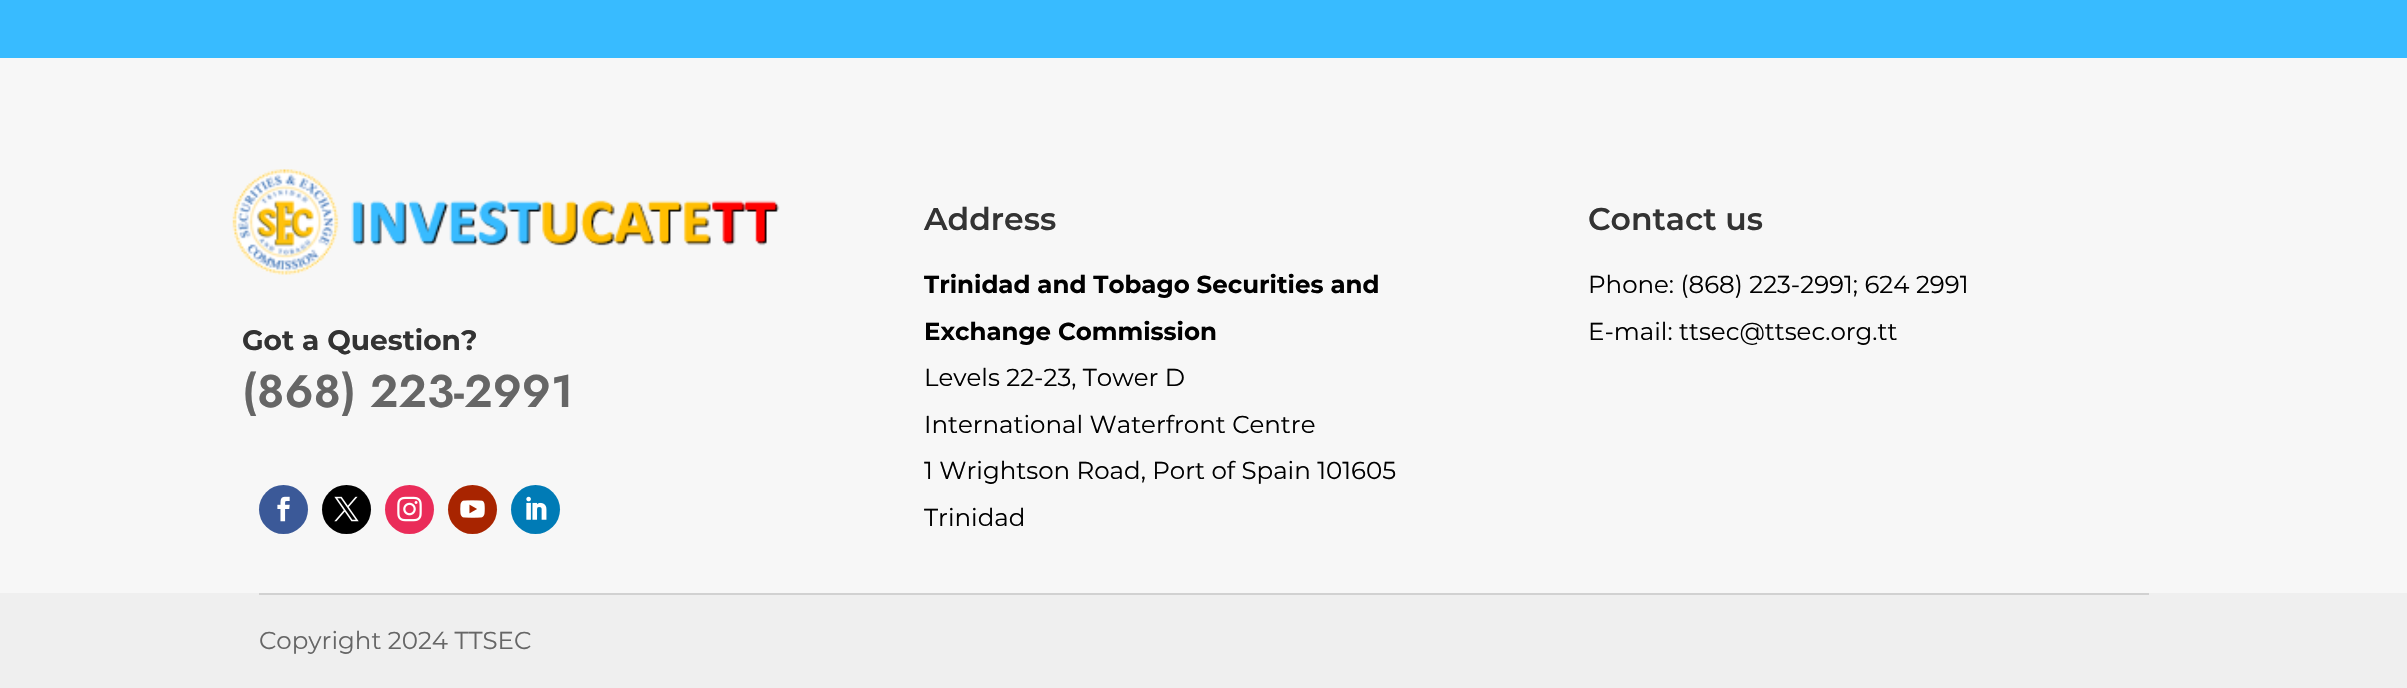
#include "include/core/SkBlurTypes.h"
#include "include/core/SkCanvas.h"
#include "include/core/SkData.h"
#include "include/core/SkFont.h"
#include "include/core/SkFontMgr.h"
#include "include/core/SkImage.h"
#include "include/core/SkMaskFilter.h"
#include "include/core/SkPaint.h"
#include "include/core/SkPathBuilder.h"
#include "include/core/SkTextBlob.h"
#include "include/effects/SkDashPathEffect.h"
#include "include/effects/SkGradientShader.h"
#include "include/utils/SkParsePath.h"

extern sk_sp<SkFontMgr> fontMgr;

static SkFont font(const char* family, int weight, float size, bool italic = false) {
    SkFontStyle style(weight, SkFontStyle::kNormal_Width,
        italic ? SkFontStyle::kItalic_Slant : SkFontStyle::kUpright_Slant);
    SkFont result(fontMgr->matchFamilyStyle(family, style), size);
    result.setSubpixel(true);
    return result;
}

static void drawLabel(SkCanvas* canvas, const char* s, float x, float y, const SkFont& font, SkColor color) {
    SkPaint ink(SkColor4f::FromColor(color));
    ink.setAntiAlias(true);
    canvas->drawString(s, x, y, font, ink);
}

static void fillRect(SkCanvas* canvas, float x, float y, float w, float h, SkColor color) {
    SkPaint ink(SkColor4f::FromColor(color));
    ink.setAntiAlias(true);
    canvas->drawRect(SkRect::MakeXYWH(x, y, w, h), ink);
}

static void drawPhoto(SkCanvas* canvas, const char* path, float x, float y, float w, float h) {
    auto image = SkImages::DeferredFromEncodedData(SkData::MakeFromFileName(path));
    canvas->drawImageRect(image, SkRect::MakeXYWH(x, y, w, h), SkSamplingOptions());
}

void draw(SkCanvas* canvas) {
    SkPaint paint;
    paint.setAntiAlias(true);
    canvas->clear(0xFF38BBFF);
    fillRect(canvas, 0, 58, 2407, 535, 0xFFF7F7F7);
    drawPhoto(canvas, "assets/img1.png", 232, 169, 548, 106);
    SkFont font1 = font("Montserrat", 100, 28);
    drawLabel(canvas, "Got a Question?", 242, 350, font1, 0xFF333333);
    SkFont font2 = font("Jost", 600, 45.5f);
    drawLabel(canvas, "(868) 223-2991", 242, 407, font2, 0xFF666666);
    paint.setColor(0xFF3B5998);
    canvas->drawCircle(283.5f, 509.5f, 24.5f, paint);
    drawPhoto(canvas, "assets/img2.png", 277, 496, 13, 26);
    paint.setColor(0xFF000000);
    canvas->drawCircle(346.5f, 509.5f, 24.5f, paint);
    drawPhoto(canvas, "assets/img3.png", 334, 496, 25, 26);
    paint.setColor(0xFFEA2C59);
    canvas->drawCircle(409.5f, 509.5f, 24.5f, paint);
    drawPhoto(canvas, "assets/img4.png", 397, 496, 25, 26);
    paint.setColor(0xFFA82400);
    canvas->drawCircle(472.5f, 509.5f, 24.5f, paint);
    drawPhoto(canvas, "assets/img5.png", 460, 500, 25, 18);
    paint.setColor(0xFF007BB6);
    canvas->drawCircle(535.5f, 509.5f, 24.5f, paint);
    drawPhoto(canvas, "assets/img6.png", 526, 496, 21, 24);
    SkFont font3 = font("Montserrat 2", 100, 31.5f);
    drawLabel(canvas, "Address", 924, 230, font3, 0xFF333333);
    SkFont font4 = font("Montserrat", 100, 24.5f);
    drawLabel(canvas, "Trinidad and Tobago Securities and", 924, 293, font4, 0xFF000000);
    drawLabel(canvas, "Exchange Commission", 924, 340, font4, 0xFF000000);
    SkFont font5 = font("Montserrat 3", 100, 24.5f);
    drawLabel(canvas, "Levels 22-23, Tower D", 924, 386, font5, 0xFF000000);
    drawLabel(canvas, "International Waterfront Centre", 924, 433, font5, 0xFF000000);
    drawLabel(canvas, "1 Wrightson Road, Port of Spain 101605", 924, 479, font5, 0xFF000000);
    drawLabel(canvas, "Trinidad", 924, 526, font5, 0xFF000000);
    drawLabel(canvas, "Contact us", 1588, 230, font3, 0xFF333333);
    drawLabel(canvas, "Phone: (868) 223-2991; 624 2991", 1588, 293, font5, 0xFF000000);
    drawLabel(canvas, "E-mail: ttsec@ttsec.org.tt", 1588, 340, font5, 0xFF000000);
    fillRect(canvas, 0, 593, 2407, 95, 0xFFEFEFEF);
    fillRect(canvas, 259, 593, 1890, 2, 0xFFD1D1D1);
    drawLabel(canvas, "Copyright 2024 TTSEC", 259, 649, font5, 0xFF666666);
}
